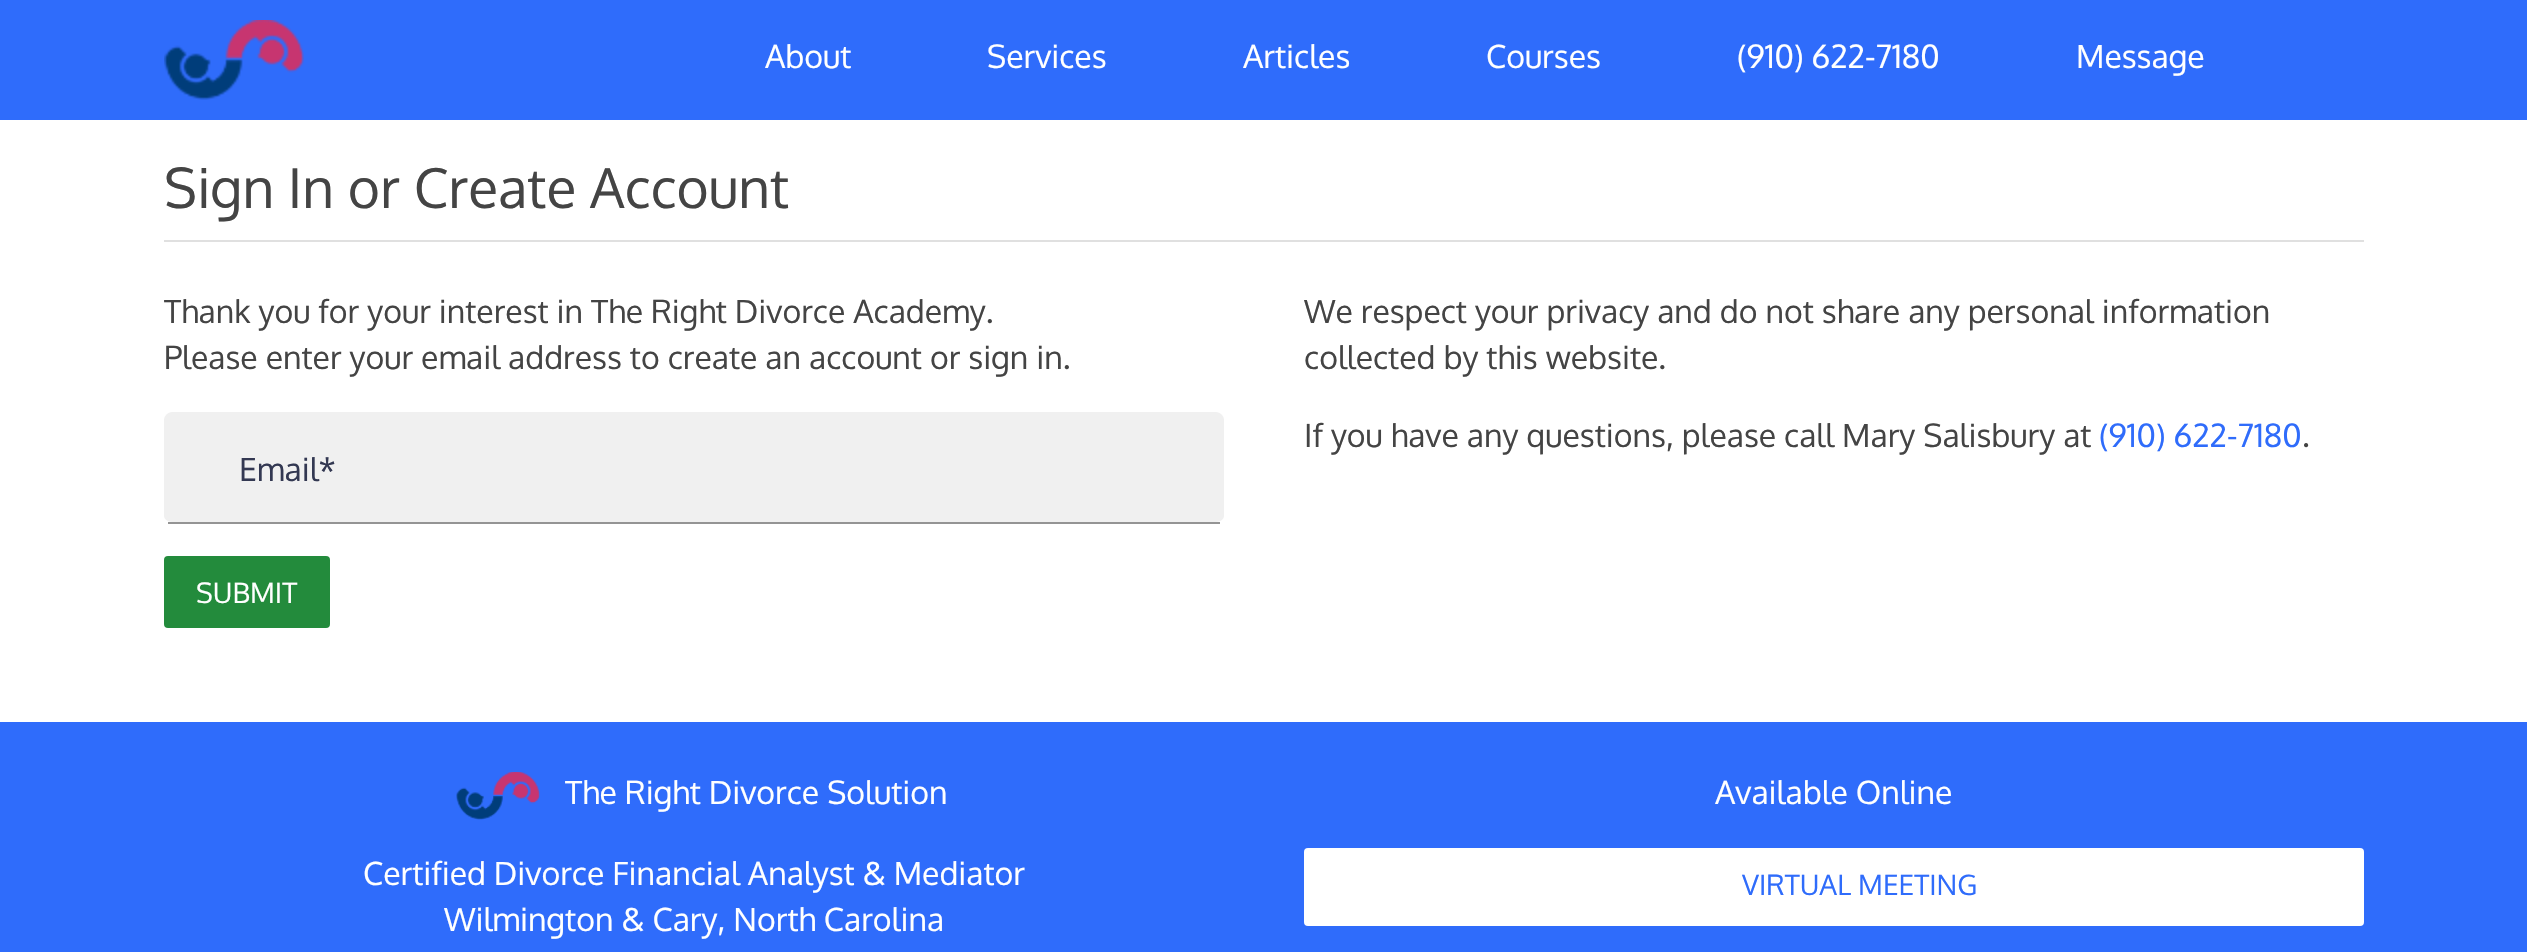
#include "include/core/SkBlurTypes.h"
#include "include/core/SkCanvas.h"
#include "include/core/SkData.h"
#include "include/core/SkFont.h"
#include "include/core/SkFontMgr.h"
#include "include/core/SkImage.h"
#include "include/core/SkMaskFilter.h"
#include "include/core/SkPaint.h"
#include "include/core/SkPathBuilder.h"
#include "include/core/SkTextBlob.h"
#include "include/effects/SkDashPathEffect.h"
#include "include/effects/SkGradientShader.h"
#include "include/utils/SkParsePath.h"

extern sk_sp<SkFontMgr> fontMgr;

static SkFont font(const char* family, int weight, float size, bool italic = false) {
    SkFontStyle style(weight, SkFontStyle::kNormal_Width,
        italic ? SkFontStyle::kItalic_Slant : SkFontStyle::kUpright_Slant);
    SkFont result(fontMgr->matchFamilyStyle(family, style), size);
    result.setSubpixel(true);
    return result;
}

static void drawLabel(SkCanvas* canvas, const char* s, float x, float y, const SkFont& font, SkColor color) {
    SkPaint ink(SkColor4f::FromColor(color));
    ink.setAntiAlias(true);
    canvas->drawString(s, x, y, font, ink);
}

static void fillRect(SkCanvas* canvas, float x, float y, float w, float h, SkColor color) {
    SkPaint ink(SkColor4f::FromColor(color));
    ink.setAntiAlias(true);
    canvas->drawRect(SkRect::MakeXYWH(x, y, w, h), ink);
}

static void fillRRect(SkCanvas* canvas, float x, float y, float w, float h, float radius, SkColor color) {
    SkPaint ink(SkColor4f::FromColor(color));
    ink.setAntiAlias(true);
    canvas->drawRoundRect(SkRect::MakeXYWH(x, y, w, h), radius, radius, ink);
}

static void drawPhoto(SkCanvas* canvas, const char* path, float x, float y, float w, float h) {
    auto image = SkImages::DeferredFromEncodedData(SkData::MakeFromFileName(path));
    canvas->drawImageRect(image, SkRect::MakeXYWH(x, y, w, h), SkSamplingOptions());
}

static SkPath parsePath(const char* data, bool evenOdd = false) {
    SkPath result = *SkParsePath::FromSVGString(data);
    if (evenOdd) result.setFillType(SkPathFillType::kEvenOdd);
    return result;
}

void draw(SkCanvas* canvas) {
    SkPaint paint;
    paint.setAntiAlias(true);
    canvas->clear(0xFFFFFFFF);
    fillRect(canvas, 0, 0, 2527, 120, 0xFF2F6CFB);
    drawPhoto(canvas, "assets/img1.png", 164, 20, 140, 80);
    SkFont font1 = font("Oxygen", 400, 32);
    drawLabel(canvas, "About", 765, 68, font1, 0xFFFFFFFF);
    drawLabel(canvas, "Services", 987, 68, font1, 0xFFFFFFFF);
    drawLabel(canvas, "Articles", 1243, 68, font1, 0xFFFFFFFF);
    drawLabel(canvas, "Courses", 1486, 68, font1, 0xFFFFFFFF);
    drawLabel(canvas, "(910) 622-7180", 1737, 68, font1, 0xFFFFFFFF);
    drawLabel(canvas, "Message", 2076, 68, font1, 0xFFFFFFFF);
    fillRect(canvas, 164, 240, 2200, 2, 0xFFE0E0E0);
    SkFont font2 = font("Oxygen", 400, 54.9f);
    drawLabel(canvas, "Sign In or Create Account", 164, 208, font2, 0xFF444444);
    drawLabel(canvas, "Thank you for your interest in The Right Divorce Academy.", 164, 323, font1, 0xFF444444);
    drawLabel(canvas, "Please enter your email address to create an account or sign in.", 164, 369, font1, 0xFF444444);
    paint.setColor(0xFFF0F0F0);
    canvas->drawPath(parsePath("M172 412H1216C1220 412 1224 416 1224 420V516C1224 519 1220 522 1216 522H172C168 522 164 519 164 516V420C164 416 168 412 172 412Z"), paint);
    fillRect(canvas, 168, 522, 1052, 2, 0xFF949494);
    drawLabel(canvas, "Email*", 239, 481, font1, 0xFF333852);
    fillRRect(canvas, 164, 556, 166, 72, 4, 0xFF238B3C);
    SkFont font3 = font("Oxygen", 400, 28);
    drawLabel(canvas, "SUBMIT", 196, 603, font3, 0xFFFFFFFF);
    drawLabel(canvas, "We respect your privacy and do not share any personal information", 1304, 323, font1, 0xFF444444);
    drawLabel(canvas, "collected by this website.", 1304, 369, font1, 0xFF444444);
    drawLabel(canvas, "If you have any questions, please call Mary Salisbury at", 1304, 447, font1, 0xFF444444);
    drawLabel(canvas, "(910) 622-7180", 2099, 447, font1, 0xFF2F6CFB);
    drawLabel(canvas, ".", 2302, 447, font1, 0xFF444444);
    fillRect(canvas, 0, 722, 2527, 230, 0xFF2F6CFB);
    drawPhoto(canvas, "assets/img2.png", 456, 772, 84, 48);
    drawLabel(canvas, "The Right Divorce Solution", 565, 804, font1, 0xFFFFFFFF);
    drawLabel(canvas, "Certified Divorce Financial Analyst & Mediator", 363, 885, font1, 0xFFFFFFFF);
    drawLabel(canvas, "Wilmington & Cary, North Carolina", 444, 931, font1, 0xFFFFFFFF);
    drawLabel(canvas, "Available Online", 1715, 804, font1, 0xFFFFFFFF);
    fillRRect(canvas, 1304, 848, 1060, 78, 4, 0xFFFFFFFF);
    drawLabel(canvas, "VIRTUAL MEETING", 1742, 895, font3, 0xFF2F6CFB);
}
